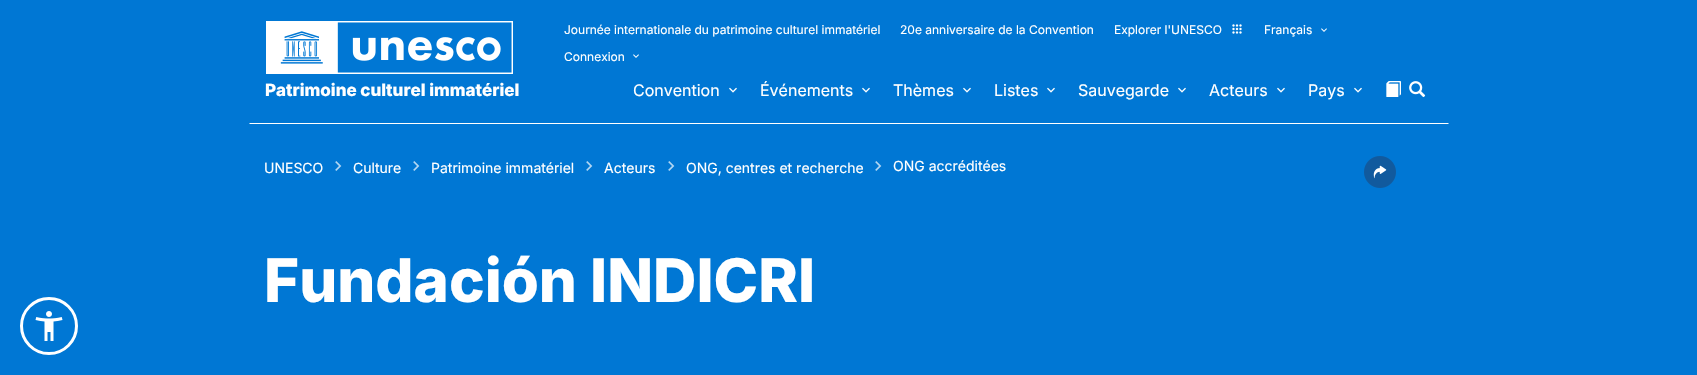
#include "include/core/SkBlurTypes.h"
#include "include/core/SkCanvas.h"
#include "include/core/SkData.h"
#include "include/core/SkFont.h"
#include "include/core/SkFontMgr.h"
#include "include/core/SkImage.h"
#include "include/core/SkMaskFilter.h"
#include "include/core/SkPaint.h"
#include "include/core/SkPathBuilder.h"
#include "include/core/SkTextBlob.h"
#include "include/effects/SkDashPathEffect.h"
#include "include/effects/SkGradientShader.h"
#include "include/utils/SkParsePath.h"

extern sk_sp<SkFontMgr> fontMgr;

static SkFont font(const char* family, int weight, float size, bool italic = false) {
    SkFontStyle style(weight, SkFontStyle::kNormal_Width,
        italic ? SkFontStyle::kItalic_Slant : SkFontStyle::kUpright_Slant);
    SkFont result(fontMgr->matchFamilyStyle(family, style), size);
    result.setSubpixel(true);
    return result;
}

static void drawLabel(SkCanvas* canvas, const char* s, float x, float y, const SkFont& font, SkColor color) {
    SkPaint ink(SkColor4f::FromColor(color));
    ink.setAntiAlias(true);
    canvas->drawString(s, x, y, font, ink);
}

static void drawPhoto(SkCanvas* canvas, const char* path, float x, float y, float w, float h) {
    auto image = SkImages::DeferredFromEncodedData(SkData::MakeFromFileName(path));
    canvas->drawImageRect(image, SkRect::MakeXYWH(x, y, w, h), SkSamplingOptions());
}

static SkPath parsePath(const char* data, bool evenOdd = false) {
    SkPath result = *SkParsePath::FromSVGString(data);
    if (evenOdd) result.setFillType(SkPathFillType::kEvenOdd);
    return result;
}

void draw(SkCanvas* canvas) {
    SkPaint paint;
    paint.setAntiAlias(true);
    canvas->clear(0xFF0077D4);
    paint.setColor(0xFFFFFFFF);
    canvas->drawPath(parsePath("M1449 124H249L250 123H1448Z"), paint);
    drawPhoto(canvas, "assets/img1.png", 266, 21, 247, 53);
    SkFont font1 = font("Inter", 800, 17);
    drawLabel(canvas, "Patrimoine culturel immatériel", 265, 96, font1, 0xFFFFFFFF);
    SkFont font2 = font("Inter", 400, 12);
    drawLabel(canvas, "Journée internationale du patrimoine culturel immatériel", 564, 34, font2, 0xFFFFFFFF);
    drawLabel(canvas, "20e anniversaire de la Convention", 900, 34, font2, 0xFFFFFFFF);
    drawLabel(canvas, "Explorer l'UNESCO", 1114, 34, font2, 0xFFFFFFFF);
    drawPhoto(canvas, "assets/img2.png", 1232, 24, 10, 10);
    drawLabel(canvas, "Français", 1264, 34, font2, 0xFFFFFFFF);
    drawPhoto(canvas, "assets/img3.png", 1321, 28, 6, 4);
    drawLabel(canvas, "Connexion", 564, 61, font2, 0xFFFFFFFF);
    drawPhoto(canvas, "assets/img3.png", 633, 54, 6, 4);
    SkFont font3 = font("Inter", 400, 16);
    drawLabel(canvas, "Convention", 633, 96, font3, 0xFFFFFFFF);
    drawPhoto(canvas, "assets/img4.png", 729, 87, 8, 6);
    drawLabel(canvas, "Événements", 760, 96, font3, 0xFFFFFFFF);
    drawPhoto(canvas, "assets/img4.png", 862, 87, 8, 6);
    drawLabel(canvas, "Thèmes", 893, 96, font3, 0xFFFFFFFF);
    drawPhoto(canvas, "assets/img4.png", 963, 87, 8, 6);
    drawLabel(canvas, "Listes", 994, 96, font3, 0xFFFFFFFF);
    drawPhoto(canvas, "assets/img4.png", 1047, 87, 8, 6);
    drawLabel(canvas, "Sauvegarde", 1078, 96, font3, 0xFFFFFFFF);
    drawPhoto(canvas, "assets/img4.png", 1178, 87, 8, 6);
    drawLabel(canvas, "Acteurs", 1209, 96, font3, 0xFFFFFFFF);
    drawPhoto(canvas, "assets/img4.png", 1277, 87, 8, 6);
    drawLabel(canvas, "Pays", 1308, 96, font3, 0xFFFFFFFF);
    drawPhoto(canvas, "assets/img4.png", 1354, 87, 8, 6);
    drawPhoto(canvas, "assets/img5.png", 1386, 81, 15, 16);
    drawPhoto(canvas, "assets/img6.png", 1409, 81, 17, 17);
    SkFont font4 = font("Inter", 400, 14);
    drawLabel(canvas, "UNESCO", 264, 173, font4, 0xFFFFFFFF);
    drawPhoto(canvas, "assets/img7.png", 335, 161, 7, 10);
    drawLabel(canvas, "Culture", 353, 173, font4, 0xFFFFFFFF);
    drawPhoto(canvas, "assets/img7.png", 413, 161, 7, 10);
    drawLabel(canvas, "Patrimoine immatériel", 431, 173, font4, 0xFFFFFFFF);
    drawPhoto(canvas, "assets/img7.png", 586, 161, 7, 10);
    drawLabel(canvas, "Acteurs", 604, 173, font4, 0xFFFFFFFF);
    drawPhoto(canvas, "assets/img7.png", 668, 161, 7, 10);
    drawLabel(canvas, "ONG, centres et recherche", 686, 173, font4, 0xFFFFFFFF);
    drawPhoto(canvas, "assets/img7.png", 875, 161, 7, 10);
    drawLabel(canvas, "ONG accréditées", 893, 171, font4, 0xFFFFFFFF);
    drawPhoto(canvas, "assets/img8.png", 1364, 156, 32, 32);
    SkFont font5 = font("Inter", 800, 60);
    drawLabel(canvas, "Fundación INDICRI", 264, 302, font5, 0xFFFFFFFF);
    paint.setStroke(true);
    paint.setStrokeWidth(3);
    canvas->drawCircle(49, 326, 27.5f, paint);
    drawPhoto(canvas, "assets/img9.png", 35, 311, 28, 30);
}
